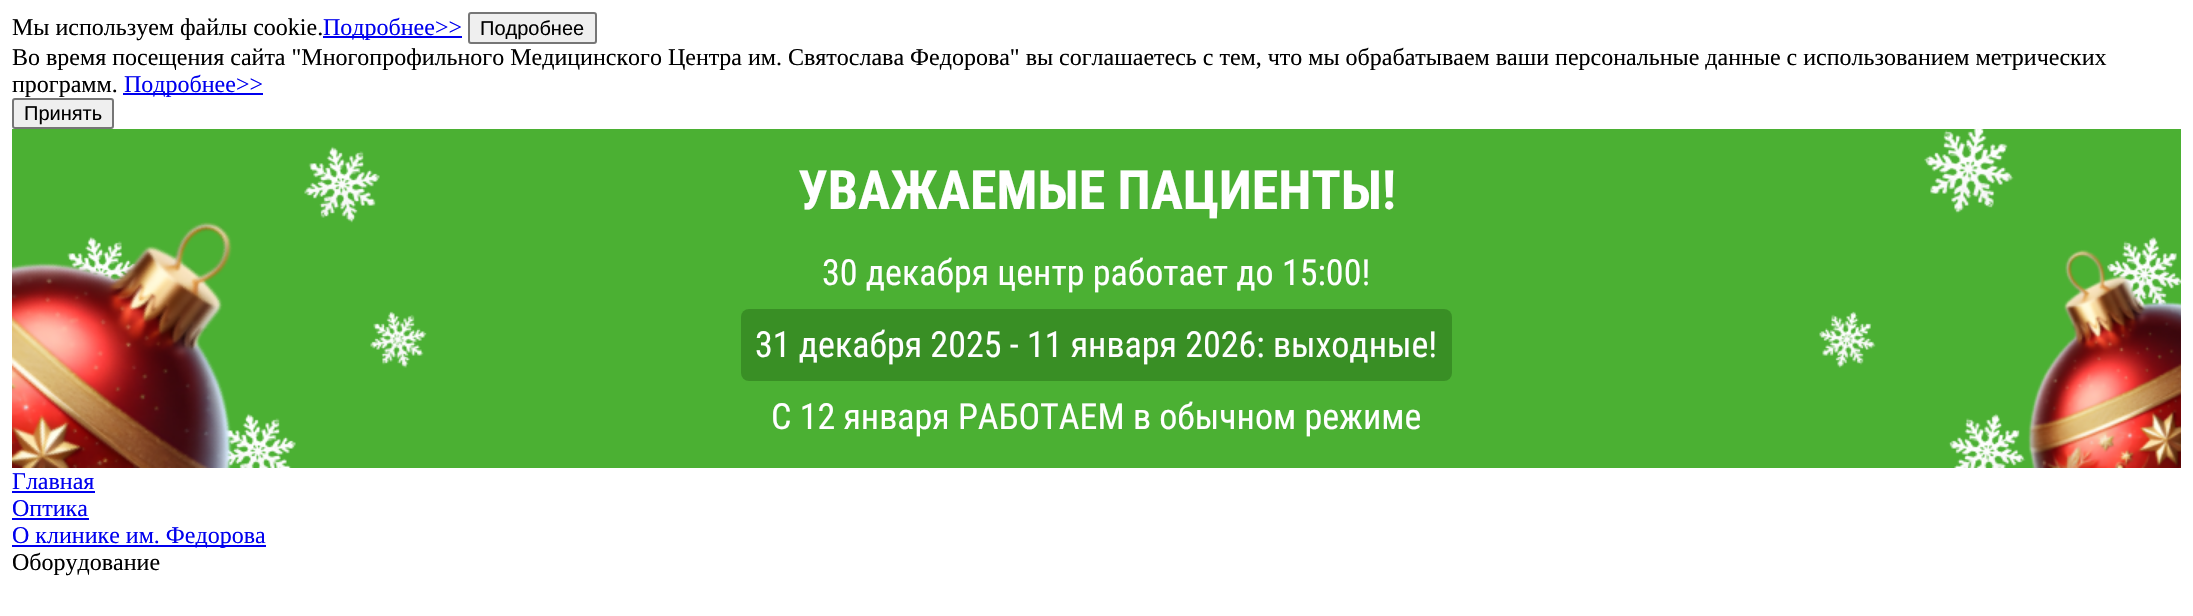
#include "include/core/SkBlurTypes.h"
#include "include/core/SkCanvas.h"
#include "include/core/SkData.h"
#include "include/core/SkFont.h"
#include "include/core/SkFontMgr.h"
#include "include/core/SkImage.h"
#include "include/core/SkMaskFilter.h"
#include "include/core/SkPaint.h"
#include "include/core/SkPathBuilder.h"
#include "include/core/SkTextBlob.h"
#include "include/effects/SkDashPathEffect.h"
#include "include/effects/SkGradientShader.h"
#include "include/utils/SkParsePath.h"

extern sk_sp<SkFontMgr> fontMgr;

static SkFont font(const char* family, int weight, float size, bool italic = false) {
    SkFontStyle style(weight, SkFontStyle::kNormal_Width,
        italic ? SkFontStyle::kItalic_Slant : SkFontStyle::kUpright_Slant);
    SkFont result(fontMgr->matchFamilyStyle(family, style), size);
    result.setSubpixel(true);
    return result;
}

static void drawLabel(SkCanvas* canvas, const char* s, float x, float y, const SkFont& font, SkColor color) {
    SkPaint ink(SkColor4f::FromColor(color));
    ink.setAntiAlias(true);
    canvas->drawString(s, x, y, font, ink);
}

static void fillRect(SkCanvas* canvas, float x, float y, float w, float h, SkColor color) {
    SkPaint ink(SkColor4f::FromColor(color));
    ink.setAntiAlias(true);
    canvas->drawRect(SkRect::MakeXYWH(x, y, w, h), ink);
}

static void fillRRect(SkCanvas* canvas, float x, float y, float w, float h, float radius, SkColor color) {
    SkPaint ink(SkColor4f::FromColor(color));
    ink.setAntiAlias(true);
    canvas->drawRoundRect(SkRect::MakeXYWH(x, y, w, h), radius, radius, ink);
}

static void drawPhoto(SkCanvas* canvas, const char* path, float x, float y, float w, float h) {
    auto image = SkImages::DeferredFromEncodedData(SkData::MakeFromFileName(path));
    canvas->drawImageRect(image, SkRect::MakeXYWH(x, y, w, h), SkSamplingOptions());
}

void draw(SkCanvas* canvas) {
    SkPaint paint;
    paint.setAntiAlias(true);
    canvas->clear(0xFFFFFFFF);
    SkFont font1 = font("Liberation Serif", 400, 24);
    drawLabel(canvas, "Мы используем файлы cookie.", 12, 35, font1, 0xFF000000);
    fillRect(canvas, 323, 36, 139, 2, 0xFF0000EE);
    drawLabel(canvas, "Подробнее>>", 323, 35, font1, 0xFF0000EE);
    paint.setColor(0xFFEFEFEF);
    canvas->drawRoundRect(SkRect::MakeXYWH(469, 13, 127, 30), 2, 2, paint);
    paint.setStroke(true);
    paint.setStrokeWidth(2);
    paint.setColor(0xFF767676);
    canvas->drawRoundRect(SkRect::MakeXYWH(469, 13, 127, 30), 2, 2, paint);
    SkFont font2 = font("Liberation Sans", 400, 20);
    drawLabel(canvas, "Подробнее", 480, 35, font2, 0xFF000000);
    drawLabel(canvas, "Во время посещения сайта \"Многопрофильного Медицинского Центра им. Святослава Федорова\" вы соглашаетесь с тем, что мы обрабатываем ваши персональные данные с использованием метрических", 12, 65, font1, 0xFF000000);
    drawLabel(canvas, "программ.", 12, 92, font1, 0xFF000000);
    fillRect(canvas, 123, 93, 140, 2, 0xFF0000EE);
    drawLabel(canvas, "Подробнее>>", 124, 92, font1, 0xFF0000EE);
    paint.setStroke(false);
    paint.setColor(0xFFEFEFEF);
    canvas->drawRoundRect(SkRect::MakeXYWH(13, 99, 100, 29), 2, 2, paint);
    paint.setStroke(true);
    paint.setColor(0xFF767676);
    canvas->drawRoundRect(SkRect::MakeXYWH(13, 99, 100, 29), 2, 2, paint);
    drawLabel(canvas, "Принять", 24, 120, font2, 0xFF000000);
    fillRect(canvas, 12, 129, 2169, 339, 0xFF4BB033);
    drawPhoto(canvas, "assets/img1.png", 12, 146, 415, 322);
    SkFont font3 = font("Roboto Condensed", 700, 54);
    drawLabel(canvas, "УВАЖАЕМЫЕ ПАЦИЕНТЫ!", 798, 209, font3, 0xFFFFFFFF);
    drawPhoto(canvas, "assets/img2.png", 1819, 129, 362, 339);
    SkFont font4 = font("Roboto Condensed", 400, 36);
    drawLabel(canvas, "30 декабря центр работает до 15:00!", 822, 285, font4, 0xFFFFFFFF);
    fillRRect(canvas, 741, 309, 711, 72, 8, 0xFF398F25);
    drawLabel(canvas, "31 декабря 2025 - 11 января 2026: выходные!", 755, 357, font4, 0xFFFFFFFF);
    drawLabel(canvas, "С 12 января РАБОТАЕМ в обычном режиме", 771, 429, font4, 0xFFFFFFFF);
    drawLabel(canvas, "Главная", 12, 489, font1, 0xFF0000EE);
    fillRect(canvas, 12, 491, 83, 2, 0xFF0000EE);
    drawLabel(canvas, "Оптика", 12, 516, font1, 0xFF0000EE);
    fillRect(canvas, 12, 518, 77, 2, 0xFF0000EE);
    fillRect(canvas, 12, 545, 254, 2, 0xFF0000EE);
    drawLabel(canvas, "О клинике им. Федорова", 12, 543, font1, 0xFF0000EE);
    drawLabel(canvas, "Оборудование", 12, 570, font1, 0xFF000000);
}
